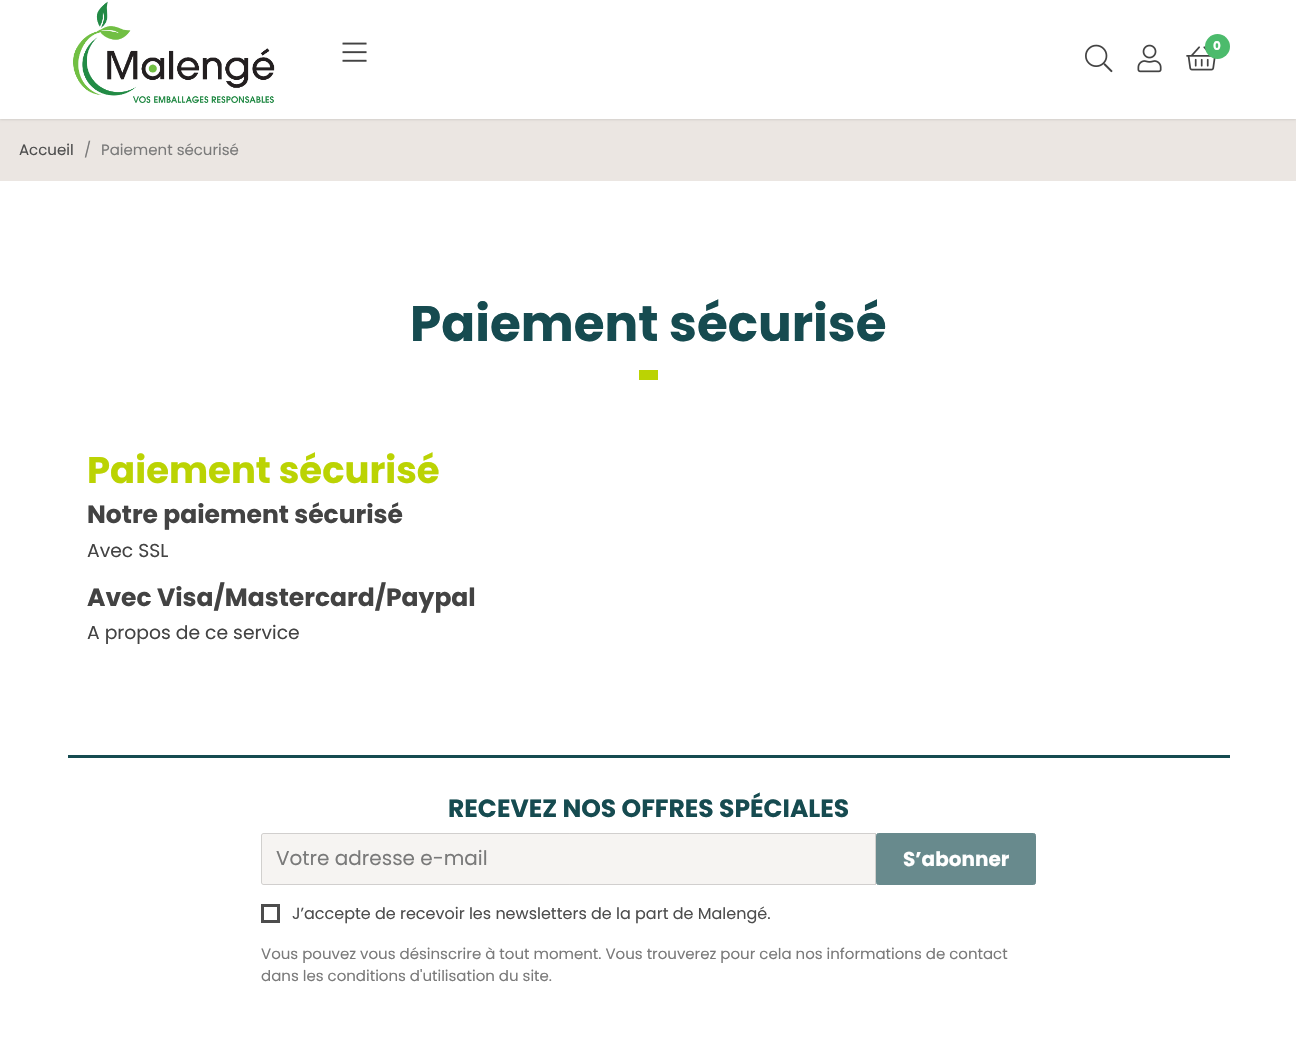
#include "include/core/SkBlurTypes.h"
#include "include/core/SkCanvas.h"
#include "include/core/SkData.h"
#include "include/core/SkFont.h"
#include "include/core/SkFontMgr.h"
#include "include/core/SkImage.h"
#include "include/core/SkMaskFilter.h"
#include "include/core/SkPaint.h"
#include "include/core/SkPathBuilder.h"
#include "include/core/SkTextBlob.h"
#include "include/effects/SkDashPathEffect.h"
#include "include/effects/SkGradientShader.h"
#include "include/utils/SkParsePath.h"

extern sk_sp<SkFontMgr> fontMgr;

static SkFont font(const char* family, int weight, float size, bool italic = false) {
    SkFontStyle style(weight, SkFontStyle::kNormal_Width,
        italic ? SkFontStyle::kItalic_Slant : SkFontStyle::kUpright_Slant);
    SkFont result(fontMgr->matchFamilyStyle(family, style), size);
    result.setSubpixel(true);
    return result;
}

static void drawLabel(SkCanvas* canvas, const char* s, float x, float y, const SkFont& font, SkColor color) {
    SkPaint ink(SkColor4f::FromColor(color));
    ink.setAntiAlias(true);
    canvas->drawString(s, x, y, font, ink);
}

static void fillRect(SkCanvas* canvas, float x, float y, float w, float h, SkColor color) {
    SkPaint ink(SkColor4f::FromColor(color));
    ink.setAntiAlias(true);
    canvas->drawRect(SkRect::MakeXYWH(x, y, w, h), ink);
}

static void drawPhoto(SkCanvas* canvas, const char* path, float x, float y, float w, float h) {
    auto image = SkImages::DeferredFromEncodedData(SkData::MakeFromFileName(path));
    canvas->drawImageRect(image, SkRect::MakeXYWH(x, y, w, h), SkSamplingOptions());
}

static SkPath parsePath(const char* data, bool evenOdd = false) {
    SkPath result = *SkParsePath::FromSVGString(data);
    if (evenOdd) result.setFillType(SkPathFillType::kEvenOdd);
    return result;
}

void draw(SkCanvas* canvas) {
    SkPaint paint;
    paint.setAntiAlias(true);
    canvas->clear(0xFFFFFFFF);
    fillRect(canvas, 0, 119, 1296, 62, 0xFFEBE6E2);
    paint.setColor(0x1A000000);
    paint.setMaskFilter(SkMaskFilter::MakeBlur(kNormal_SkBlurStyle, 1));
    canvas->drawRect(SkRect::MakeXYWH(0, 1, 1296, 119), paint);
    paint.setMaskFilter(nullptr);
    fillRect(canvas, 0, 0, 1296, 119, 0xFFFFFFFF);
    drawPhoto(canvas, "assets/img1.png", 73, 1, 202, 102);
    drawPhoto(canvas, "assets/img2.png", 342, 42, 25, 20);
    drawPhoto(canvas, "assets/img3.png", 1085, 44, 28, 29);
    drawPhoto(canvas, "assets/img4.png", 1137, 44, 25, 29);
    drawPhoto(canvas, "assets/img5.png", 1186, 46, 30, 25);
    paint.setColor(0xFF4CBB6C);
    canvas->drawCircle(1217.5f, 46.5f, 12.5f, paint);
    SkFont font1 = font("Poppins", 700, 12);
    drawLabel(canvas, "0", 1213, 50, font1, 0xFFFFFFFF);
    SkFont font2 = font("Poppins", 400, 15);
    drawLabel(canvas, "Accueil", 19, 155, font2, 0xFF4D4D4D);
    drawLabel(canvas, "/", 84, 155, font2, 0xFF7A7A7A);
    drawLabel(canvas, "Paiement sécurisé", 101, 155, font2, 0xFF7A7A7A);
    SkFont font3 = font("Poppins", 700, 50);
    drawLabel(canvas, "Paiement sécurisé", 410, 341, font3, 0xFF164B50);
    fillRect(canvas, 639, 370, 19, 10, 0xFFBBD303);
    SkFont font4 = font("Poppins", 700, 37);
    drawLabel(canvas, "Paiement sécurisé", 87, 483, font4, 0xFFBBD303);
    SkFont font5 = font("Poppins", 700, 25);
    drawLabel(canvas, "Notre paiement sécurisé", 87, 523, font5, 0xFF434343);
    SkFont font6 = font("Poppins", 400, 18.75f);
    drawLabel(canvas, "Avec SSL", 87, 557, font6, 0xFF434343);
    drawLabel(canvas, "Avec Visa/Mastercard/Paypal", 87, 606, font5, 0xFF434343);
    drawLabel(canvas, "A propos de ce service", 87, 639, font6, 0xFF434343);
    fillRect(canvas, 68, 755, 1162, 3, 0xFF164B50);
    drawLabel(canvas, "RECEVEZ NOS OFFRES SPÉCIALES", 448, 817, font5, 0xFF164B50);
    paint.setColor(0xFFF6F4F2);
    canvas->drawPath(parsePath("M263.5 833H876V885H263.5C262 885 261 884 261 882.5V835.5C261 834 262 833 263.5 833Z"), paint);
    paint.setStroke(true);
    paint.setStrokeWidth(1);
    paint.setColor(0x26000000);
    canvas->drawPath(parsePath("M263.5 833.5H875.5V884.5H263.5C262.5 884.5 261.5 883.5 261.5 882.5V835.5C261.5 834.5 262.5 833.5 263.5 833.5Z"), paint);
    SkFont font7 = font("Poppins", 400, 20);
    drawLabel(canvas, "Votre adresse e-mail", 276, 865, font7, 0xFF7A7A7A);
    paint.setStroke(false);
    paint.setColor(0xFF688A8D);
    canvas->drawRoundRect(SkRect::MakeXYWH(876.5f, 833.5f, 159, 51), 2, 2, paint);
    paint.setStroke(true);
    canvas->drawRoundRect(SkRect::MakeXYWH(876.5f, 833.5f, 159, 51), 2, 2, paint);
    SkFont font8 = font("Poppins", 700, 20);
    drawLabel(canvas, "S’abonner", 903, 866, font8, 0xFFFFFFFF);
    paint.setStrokeWidth(3);
    paint.setColor(0xFF4D4D4D);
    canvas->drawRect(SkRect::MakeXYWH(262.5f, 905.5f, 16, 16), paint);
    SkFont font9 = font("Poppins", 400, 16);
    drawLabel(canvas, "J’accepte de recevoir les newsletters de la part de Malengé.", 292, 919, font9, 0xFF4D4D4D);
    drawLabel(canvas, "Vous pouvez vous désinscrire à tout moment. Vous trouverez pour cela nos informations de contact", 261, 959, font2, 0xFF7A7A7A);
    drawLabel(canvas, "dans les conditions d'utilisation du site.", 261, 981, font2, 0xFF7A7A7A);
}
